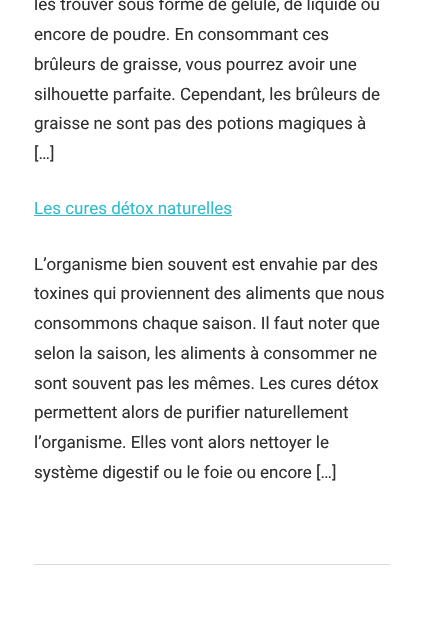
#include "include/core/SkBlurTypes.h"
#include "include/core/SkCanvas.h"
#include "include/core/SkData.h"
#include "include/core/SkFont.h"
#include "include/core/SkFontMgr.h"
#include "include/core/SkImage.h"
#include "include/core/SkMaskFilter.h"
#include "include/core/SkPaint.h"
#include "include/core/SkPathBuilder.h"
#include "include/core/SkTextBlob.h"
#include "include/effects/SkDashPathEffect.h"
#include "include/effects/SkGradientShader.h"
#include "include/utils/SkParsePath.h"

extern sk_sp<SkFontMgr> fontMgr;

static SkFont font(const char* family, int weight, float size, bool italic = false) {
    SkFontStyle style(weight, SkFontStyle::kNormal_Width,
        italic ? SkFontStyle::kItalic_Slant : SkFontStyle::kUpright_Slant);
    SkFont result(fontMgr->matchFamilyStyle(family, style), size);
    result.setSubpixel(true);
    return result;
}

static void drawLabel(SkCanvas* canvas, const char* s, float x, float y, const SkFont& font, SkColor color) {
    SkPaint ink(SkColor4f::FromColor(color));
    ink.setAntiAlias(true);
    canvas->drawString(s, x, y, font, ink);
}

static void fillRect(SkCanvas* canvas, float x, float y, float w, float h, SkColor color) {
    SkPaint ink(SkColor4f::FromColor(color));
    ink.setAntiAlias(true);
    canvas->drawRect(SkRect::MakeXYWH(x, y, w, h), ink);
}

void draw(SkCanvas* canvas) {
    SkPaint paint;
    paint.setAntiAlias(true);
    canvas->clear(0xFFFFFFFF);
    SkFont font1 = font("Roboto", 400, 17);
    drawLabel(canvas, "les trouver sous forme de gélule, de liquide ou", 34, 10, font1, 0xFF303030);
    drawLabel(canvas, "encore de poudre. En consommant ces", 34, 40, font1, 0xFF303030);
    drawLabel(canvas, "brûleurs de graisse, vous pourrez avoir une", 34, 70, font1, 0xFF303030);
    drawLabel(canvas, "silhouette parfaite. Cependant, les brûleurs de", 34, 100, font1, 0xFF303030);
    drawLabel(canvas, "graisse ne sont pas des potions magiques à", 34, 129, font1, 0xFF303030);
    drawLabel(canvas, "[…]", 34, 159, font1, 0xFF303030);
    drawLabel(canvas, "Les cures détox naturelles", 34, 214, font1, 0xFF33BBCC);
    fillRect(canvas, 34, 215, 198, 1, 0xFF33BBCC);
    drawLabel(canvas, "L’organisme bien souvent est envahie par des", 34, 270, font1, 0xFF303030);
    drawLabel(canvas, "toxines qui proviennent des aliments que nous", 34, 299, font1, 0xFF303030);
    drawLabel(canvas, "consommons chaque saison. Il faut noter que", 34, 329, font1, 0xFF303030);
    drawLabel(canvas, "selon la saison, les aliments à consommer ne", 34, 359, font1, 0xFF303030);
    drawLabel(canvas, "sont souvent pas les mêmes. Les cures détox", 34, 389, font1, 0xFF303030);
    drawLabel(canvas, "permettent alors de purifier naturellement", 34, 418, font1, 0xFF303030);
    drawLabel(canvas, "l’organisme. Elles vont alors nettoyer le", 34, 448, font1, 0xFF303030);
    drawLabel(canvas, "système digestif ou le foie ou encore […]", 34, 478, font1, 0xFF303030);
    fillRect(canvas, 34, 564, 356, 1, 0xFFD9D9D9);
}
